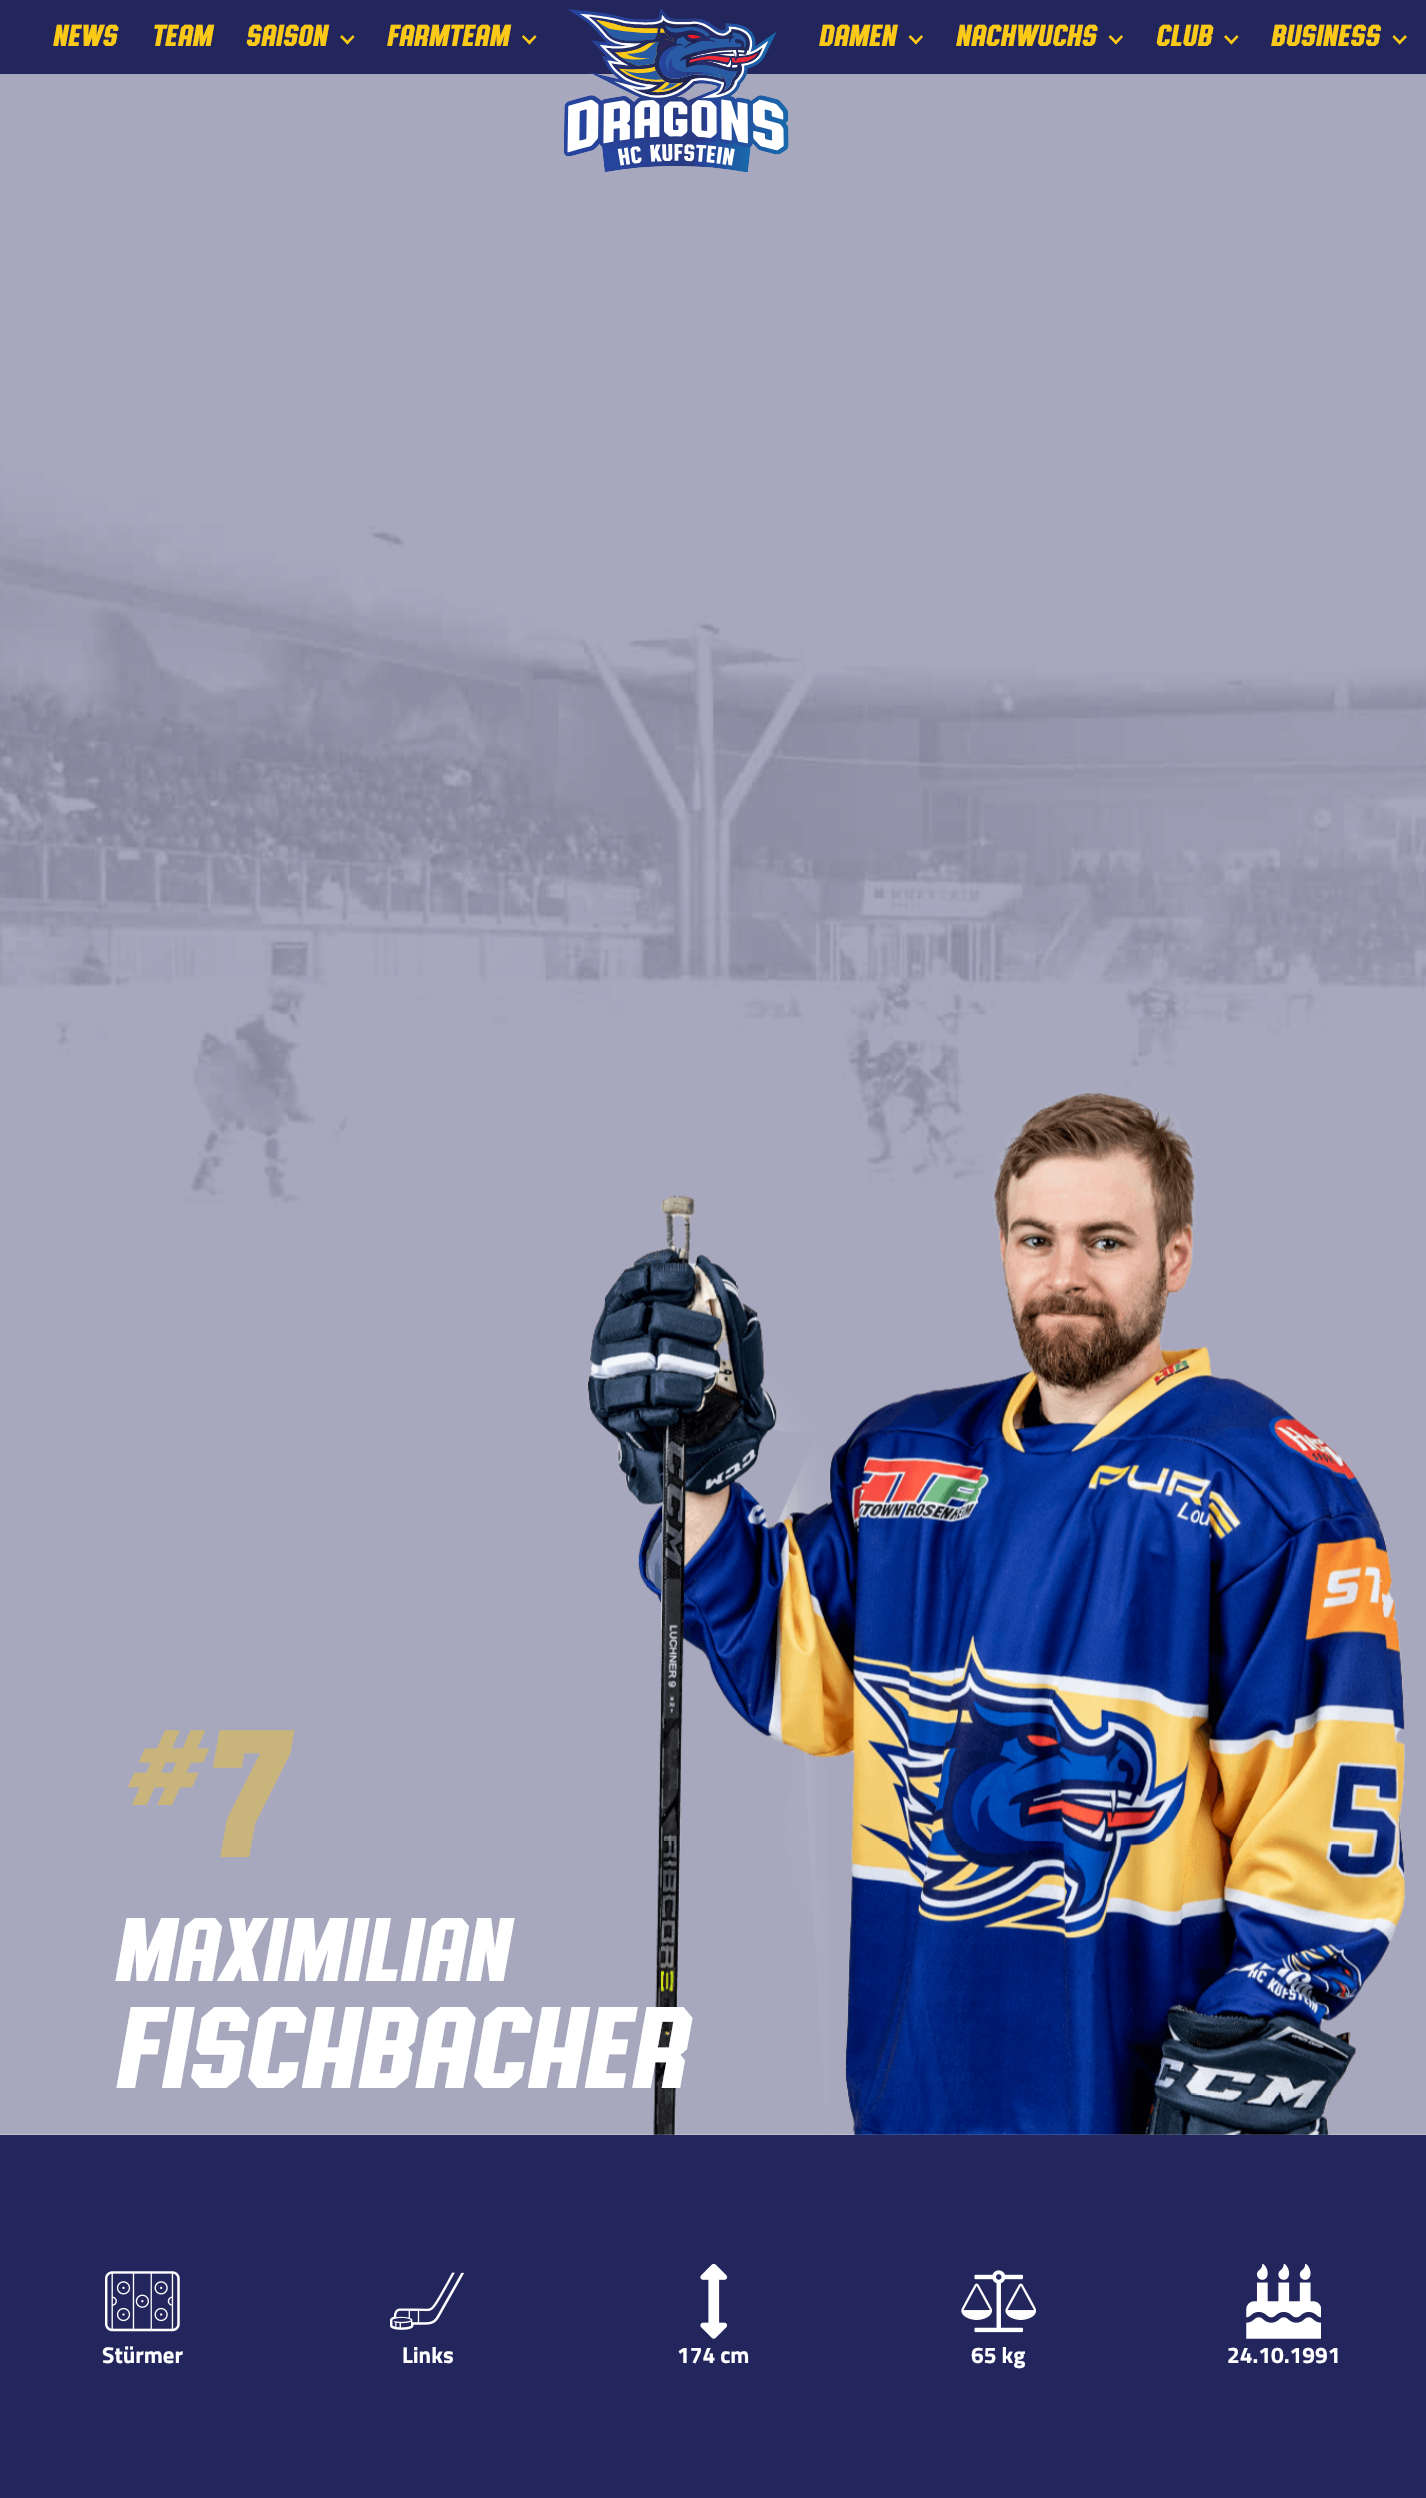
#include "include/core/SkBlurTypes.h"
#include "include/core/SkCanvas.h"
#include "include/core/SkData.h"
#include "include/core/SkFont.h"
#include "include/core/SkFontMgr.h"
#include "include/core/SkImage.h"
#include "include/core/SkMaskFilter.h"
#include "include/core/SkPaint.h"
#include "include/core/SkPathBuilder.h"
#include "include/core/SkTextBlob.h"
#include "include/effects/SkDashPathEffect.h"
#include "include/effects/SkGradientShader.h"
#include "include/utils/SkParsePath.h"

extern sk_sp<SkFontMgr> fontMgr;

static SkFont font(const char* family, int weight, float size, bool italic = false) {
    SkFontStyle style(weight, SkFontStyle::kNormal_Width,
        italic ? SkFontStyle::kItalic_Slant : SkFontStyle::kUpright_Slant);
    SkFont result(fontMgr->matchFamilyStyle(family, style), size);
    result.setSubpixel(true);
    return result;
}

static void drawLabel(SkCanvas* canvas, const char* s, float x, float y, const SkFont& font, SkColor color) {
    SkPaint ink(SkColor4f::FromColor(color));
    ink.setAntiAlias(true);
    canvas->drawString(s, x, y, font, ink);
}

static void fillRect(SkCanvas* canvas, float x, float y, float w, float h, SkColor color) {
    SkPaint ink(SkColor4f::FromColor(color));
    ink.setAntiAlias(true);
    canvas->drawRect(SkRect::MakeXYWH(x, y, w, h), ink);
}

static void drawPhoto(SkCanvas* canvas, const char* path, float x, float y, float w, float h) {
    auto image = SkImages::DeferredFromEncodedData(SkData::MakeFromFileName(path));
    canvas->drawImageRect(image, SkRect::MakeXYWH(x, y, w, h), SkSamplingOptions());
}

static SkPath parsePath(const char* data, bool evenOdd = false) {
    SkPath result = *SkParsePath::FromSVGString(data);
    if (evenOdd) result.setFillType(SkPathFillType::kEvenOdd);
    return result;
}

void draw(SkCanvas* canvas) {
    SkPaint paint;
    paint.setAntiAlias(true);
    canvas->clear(0xFFFFFFFF);
    fillRect(canvas, 0, 0, 1426, 74, 0xFF23255D);
    SkFont font1 = font("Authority", 400, 29.5f, true);
    drawLabel(canvas, "NEWS", 52, 46, font1, 0xFFFBC917);
    drawLabel(canvas, "TEAM", 151, 46, font1, 0xFFFBC917);
    drawLabel(canvas, "SAISON", 245, 46, font1, 0xFFFBC917);
    paint.setColor(0xFFFBC917);
    canvas->drawPath(parsePath("M354.5 37L347.5 44.5L345.5 42.5L353 35Z"), paint);
    canvas->drawPath(parsePath("M349 42.5L347.5 44.5L340 37L342 35Z"), paint);
    drawLabel(canvas, "FARMTEAM", 386, 46, font1, 0xFFFBC917);
    canvas->drawPath(parsePath("M536.5 37L529.5 44.5L527.5 42.5L535 35Z"), paint);
    canvas->drawPath(parsePath("M531 42.5L529.5 44.5L522 37L523.5 35Z"), paint);
    drawPhoto(canvas, "assets/img2.png", 0, 74, 1426, 2061);
    drawPhoto(canvas, "assets/img1.png", 564, 8, 225, 164);
    drawLabel(canvas, "DAMEN", 818, 46, font1, 0xFFFBC917);
    canvas->drawPath(parsePath("M923 37L916 44.5L914 42.5L921.5 35Z"), paint);
    canvas->drawPath(parsePath("M917.5 42.5L916 44.5L908.5 37L910.5 35Z"), paint);
    drawLabel(canvas, "NACHWUCHS", 955, 46, font1, 0xFFFBC917);
    canvas->drawPath(parsePath("M1123 37L1116 44.5L1114 42.5L1121.5 35Z"), paint);
    canvas->drawPath(parsePath("M1117.5 42.5L1116 44.5L1108.5 37L1110.5 35Z"), paint);
    drawLabel(canvas, "CLUB", 1155, 46, font1, 0xFFFBC917);
    canvas->drawPath(parsePath("M1238.5 37L1231.5 44.5L1229.5 42.5L1237 35Z"), paint);
    canvas->drawPath(parsePath("M1233 42.5L1231.5 44.5L1224 37L1226 35Z"), paint);
    drawLabel(canvas, "BUSINESS", 1270, 46, font1, 0xFFFBC917);
    canvas->drawPath(parsePath("M1407 37L1399.5 44.5L1398 42.5L1405 35Z"), paint);
    canvas->drawPath(parsePath("M1401.5 42.5L1399.5 44.5L1392.5 37L1394 35Z"), paint);
    SkFont font2 = font("Authority", 400, 176, true);
    drawLabel(canvas, "#7", 112, 1857, font2, 0xFFC9B57B);
    SkFont font3 = font("Authority", 400, 87.5f, true);
    drawLabel(canvas, "Maximilian", 112, 1981, font3, 0xFFFFFFFF);
    drawPhoto(canvas, "assets/img3.png", 587, 1091, 819, 1044);
    SkFont font4 = font("Authority", 400, 112.5f, true);
    drawLabel(canvas, "Fischbacher", 112, 2088, font4, 0xFFFFFFFF);
    fillRect(canvas, 0, 2135, 1426, 363, 0xFF23255D);
    drawPhoto(canvas, "assets/img4.png", 105, 2271, 75, 61);
    SkFont font5 = font("Titillium Web", 700, 22.75f);
    drawLabel(canvas, "Stürmer", 102, 2363, font5, 0xFFFFFFFF);
    drawPhoto(canvas, "assets/img5.png", 390, 2272, 74, 58);
    drawLabel(canvas, "Links", 402, 2363, font5, 0xFFFFFFFF);
    drawPhoto(canvas, "assets/img6.png", 700, 2264, 28, 75);
    drawLabel(canvas, "174 cm", 677, 2363, font5, 0xFFFFFFFF);
    drawPhoto(canvas, "assets/img7.png", 961, 2270, 75, 63);
    drawLabel(canvas, "65 kg", 971, 2363, font5, 0xFFFFFFFF);
    drawPhoto(canvas, "assets/img8.png", 1246, 2264, 75, 75);
    drawLabel(canvas, "24.10.1991", 1227, 2363, font5, 0xFFFFFFFF);
}
